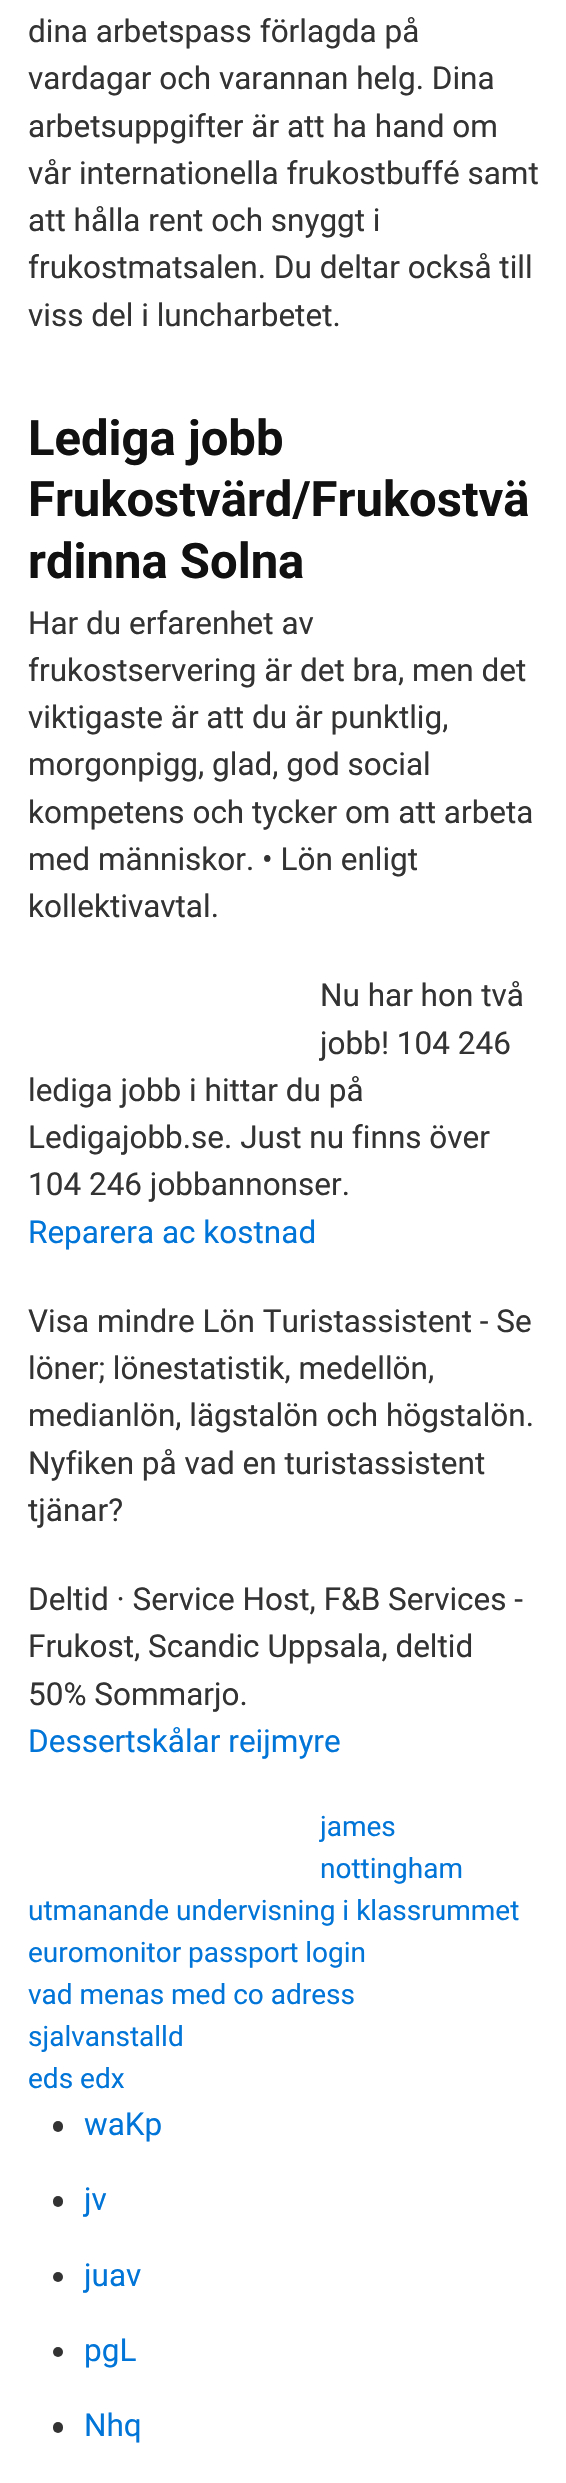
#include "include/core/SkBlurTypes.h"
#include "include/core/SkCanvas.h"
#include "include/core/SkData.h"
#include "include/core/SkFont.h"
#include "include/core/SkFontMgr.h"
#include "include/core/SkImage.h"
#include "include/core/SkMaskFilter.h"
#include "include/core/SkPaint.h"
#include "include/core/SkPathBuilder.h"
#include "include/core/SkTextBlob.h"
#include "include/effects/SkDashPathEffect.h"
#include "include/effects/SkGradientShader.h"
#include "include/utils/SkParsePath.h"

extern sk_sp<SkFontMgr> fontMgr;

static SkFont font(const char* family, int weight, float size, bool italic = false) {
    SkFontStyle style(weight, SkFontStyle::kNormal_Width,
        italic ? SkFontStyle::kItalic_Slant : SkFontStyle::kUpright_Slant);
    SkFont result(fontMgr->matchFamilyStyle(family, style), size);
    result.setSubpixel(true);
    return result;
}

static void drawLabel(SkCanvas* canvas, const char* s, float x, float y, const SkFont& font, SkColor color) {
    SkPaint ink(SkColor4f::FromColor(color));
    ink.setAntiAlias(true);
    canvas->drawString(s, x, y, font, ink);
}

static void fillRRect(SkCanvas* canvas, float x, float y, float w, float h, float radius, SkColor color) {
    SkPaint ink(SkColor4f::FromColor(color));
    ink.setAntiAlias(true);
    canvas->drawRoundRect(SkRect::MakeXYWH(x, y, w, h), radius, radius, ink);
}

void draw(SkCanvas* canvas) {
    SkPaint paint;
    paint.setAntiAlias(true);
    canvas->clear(0xFFFFFFFF);
    SkFont font1 = font("Roboto", 400, 31.5f);
    drawLabel(canvas, "dina arbetspass förlagda på", 28, 42, font1, 0xFF333333);
    drawLabel(canvas, "vardagar och varannan helg. Dina", 28, 89, font1, 0xFF333333);
    drawLabel(canvas, "arbetsuppgifter är att ha hand om", 28, 137, font1, 0xFF333333);
    drawLabel(canvas, "vår internationella frukostbuffé samt", 28, 184, font1, 0xFF333333);
    drawLabel(canvas, "att hålla rent och snyggt i", 28, 231, font1, 0xFF333333);
    drawLabel(canvas, "frukostmatsalen. Du deltar också till", 28, 278, font1, 0xFF333333);
    drawLabel(canvas, "viss del i luncharbetet.", 28, 326, font1, 0xFF333333);
    SkFont font2 = font("Roboto", 700, 49);
    drawLabel(canvas, "Lediga jobb", 28, 455, font2, 0xFF111111);
    drawLabel(canvas, "Frukostvärd/Frukostvä", 28, 516, font2, 0xFF111111);
    drawLabel(canvas, "rdinna Solna", 28, 578, font2, 0xFF111111);
    drawLabel(canvas, "Har du erfarenhet av", 28, 634, font1, 0xFF333333);
    drawLabel(canvas, "frukostservering är det bra, men det", 28, 681, font1, 0xFF333333);
    drawLabel(canvas, "viktigaste är att du är punktlig,", 28, 728, font1, 0xFF333333);
    drawLabel(canvas, "morgonpigg, glad, god social", 28, 775, font1, 0xFF333333);
    drawLabel(canvas, "kompetens och tycker om att arbeta", 28, 823, font1, 0xFF333333);
    drawLabel(canvas, "med människor. • Lön enligt", 28, 870, font1, 0xFF333333);
    drawLabel(canvas, "kollektivavtal.", 28, 917, font1, 0xFF333333);
    drawLabel(canvas, "Nu har hon två", 320, 1006, font1, 0xFF333333);
    drawLabel(canvas, "jobb! 104 246", 320, 1054, font1, 0xFF333333);
    drawLabel(canvas, "lediga jobb i hittar du på", 28, 1101, font1, 0xFF333333);
    drawLabel(canvas, "Ledigajobb.se. Just nu finns över", 28, 1148, font1, 0xFF333333);
    drawLabel(canvas, "104 246 jobbannonser.", 28, 1195, font1, 0xFF333333);
    drawLabel(canvas, "Reparera ac kostnad", 28, 1243, font1, 0xFF0275D8);
    drawLabel(canvas, "Visa mindre Lön Turistassistent - Se", 28, 1332, font1, 0xFF333333);
    drawLabel(canvas, "löner; lönestatistik, medellön,", 28, 1379, font1, 0xFF333333);
    drawLabel(canvas, "medianlön, lägstalön och högstalön.", 28, 1426, font1, 0xFF333333);
    drawLabel(canvas, "Nyfiken på vad en turistassistent", 28, 1474, font1, 0xFF333333);
    drawLabel(canvas, "tjänar?", 28, 1521, font1, 0xFF333333);
    drawLabel(canvas, "Deltid · Service Host, F&B Services -", 28, 1610, font1, 0xFF333333);
    drawLabel(canvas, "Frukost, Scandic Uppsala, deltid", 28, 1657, font1, 0xFF333333);
    drawLabel(canvas, "50% Sommarjo.", 28, 1705, font1, 0xFF333333);
    drawLabel(canvas, "Dessertskålar reijmyre", 28, 1752, font1, 0xFF0275D8);
    SkFont font3 = font("Roboto", 400, 28);
    drawLabel(canvas, "james", 320, 1836, font3, 0xFF0275D8);
    drawLabel(canvas, "nottingham", 320, 1878, font3, 0xFF0275D8);
    drawLabel(canvas, "utmanande undervisning i klassrummet", 28, 1920, font3, 0xFF0275D8);
    drawLabel(canvas, "euromonitor passport login", 28, 1962, font3, 0xFF0275D8);
    drawLabel(canvas, "vad menas med co adress", 28, 2004, font3, 0xFF0275D8);
    drawLabel(canvas, "sjalvanstalld", 28, 2046, font3, 0xFF0275D8);
    drawLabel(canvas, "eds edx", 28, 2088, font3, 0xFF0275D8);
    fillRRect(canvas, 53, 2121, 10, 11, 5, 0xFF333333);
    drawLabel(canvas, "waKp", 84, 2135, font1, 0xFF0275D8);
    fillRRect(canvas, 53, 2196, 10, 11, 5, 0xFF333333);
    drawLabel(canvas, "jv", 84, 2210, font1, 0xFF0275D8);
    paint.setColor(0xFF333333);
    canvas->drawCircle(58, 2277, 5, paint);
    drawLabel(canvas, "juav", 84, 2286, font1, 0xFF0275D8);
    canvas->drawCircle(58, 2352, 5, paint);
    drawLabel(canvas, "pgL", 84, 2361, font1, 0xFF0275D8);
    fillRRect(canvas, 53, 2422, 10, 11, 5, 0xFF333333);
    drawLabel(canvas, "Nhq", 84, 2436, font1, 0xFF0275D8);
}
